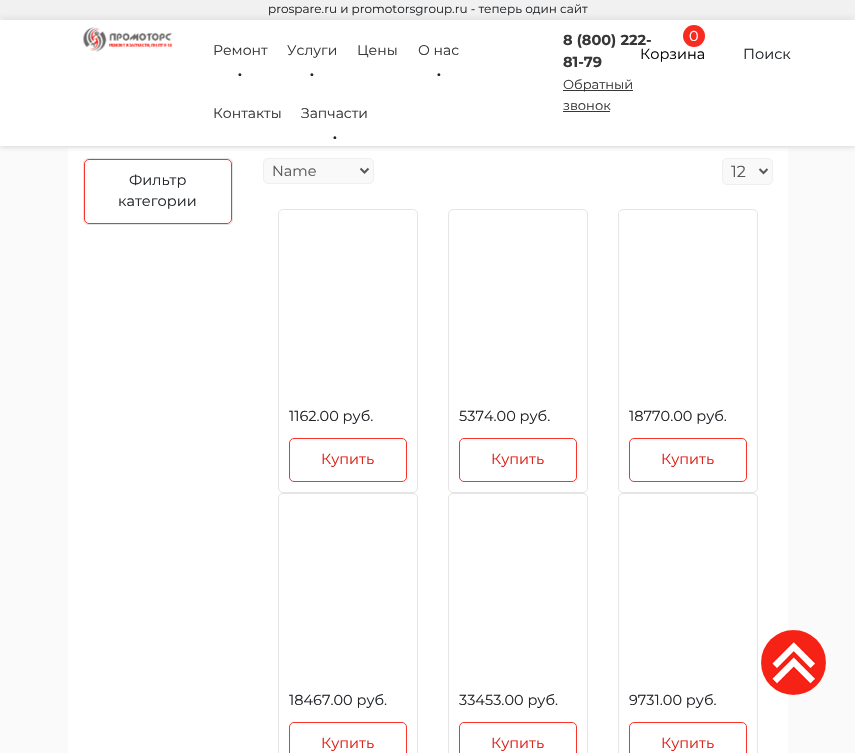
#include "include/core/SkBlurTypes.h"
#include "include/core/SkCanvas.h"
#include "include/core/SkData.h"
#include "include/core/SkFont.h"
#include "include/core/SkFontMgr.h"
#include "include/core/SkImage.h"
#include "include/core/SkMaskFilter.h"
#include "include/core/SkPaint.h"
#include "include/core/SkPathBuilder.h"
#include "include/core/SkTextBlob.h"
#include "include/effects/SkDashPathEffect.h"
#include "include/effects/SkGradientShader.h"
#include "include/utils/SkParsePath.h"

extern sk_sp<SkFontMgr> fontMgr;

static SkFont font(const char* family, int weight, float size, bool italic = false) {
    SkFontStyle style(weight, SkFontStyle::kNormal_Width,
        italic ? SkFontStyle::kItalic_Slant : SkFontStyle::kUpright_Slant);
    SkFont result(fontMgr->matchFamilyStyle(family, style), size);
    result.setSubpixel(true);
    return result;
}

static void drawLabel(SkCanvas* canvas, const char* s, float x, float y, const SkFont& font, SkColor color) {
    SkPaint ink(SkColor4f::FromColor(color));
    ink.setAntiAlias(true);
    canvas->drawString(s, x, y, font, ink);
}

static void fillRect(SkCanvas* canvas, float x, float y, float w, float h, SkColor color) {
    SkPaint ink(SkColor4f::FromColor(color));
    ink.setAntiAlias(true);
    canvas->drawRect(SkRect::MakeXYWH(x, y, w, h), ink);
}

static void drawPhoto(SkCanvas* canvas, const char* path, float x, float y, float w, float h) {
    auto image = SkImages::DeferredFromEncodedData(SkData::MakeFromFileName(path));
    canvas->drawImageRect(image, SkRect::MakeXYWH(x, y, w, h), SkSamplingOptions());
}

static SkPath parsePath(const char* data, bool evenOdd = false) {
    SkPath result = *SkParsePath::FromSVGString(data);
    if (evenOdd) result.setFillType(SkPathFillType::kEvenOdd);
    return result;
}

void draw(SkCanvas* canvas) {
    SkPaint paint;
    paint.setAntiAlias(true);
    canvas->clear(0xFFFAFAFA);
    fillRect(canvas, 0, 0, 855, 18, 0xFFF1F1F1);
    SkFont font1 = font("Montserrat", 400, 12);
    drawLabel(canvas, "prospare.ru и promotorsgroup.ru - теперь один сайт", 268, 13, font1, 0xFF212529);
    fillRect(canvas, 68, 148, 720, 605, 0xFFFFFFFF);
    paint.setColor(0x6B808080);
    paint.setMaskFilter(SkMaskFilter::MakeBlur(kNormal_SkBlurStyle, 3));
    canvas->drawRect(SkRect::MakeXYWH(0, 20, 855, 126), paint);
    paint.setMaskFilter(nullptr);
    fillRect(canvas, 0, 20, 855, 126, 0xFFFFFFFF);
    drawPhoto(canvas, "assets/img1.png", 83, 27, 90, 25);
    SkFont font2 = font("Montserrat", 400, 14);
    drawLabel(canvas, "Ремонт", 213, 55, font2, 0xFF373737);
    SkFont font3 = font("Montserrat", 700, 14.5f);
    drawLabel(canvas, ".", 238, 76, font3, 0xFF212529);
    drawLabel(canvas, "Услуги", 287, 55, font2, 0xFF373737);
    drawLabel(canvas, ".", 310, 76, font3, 0xFF212529);
    drawLabel(canvas, "Цены", 357, 55, font2, 0xFF373737);
    drawLabel(canvas, "О нас", 418, 55, font2, 0xFF373737);
    drawLabel(canvas, ".", 437, 76, font3, 0xFF212529);
    drawLabel(canvas, "Контакты", 213, 118, font2, 0xFF373737);
    drawLabel(canvas, "Запчасти", 301, 118, font2, 0xFF373737);
    drawLabel(canvas, ".", 333, 139, font3, 0xFF212529);
    drawLabel(canvas, "8 (800) 222-", 563, 45, font3, 0xFF373737);
    drawLabel(canvas, "81-79", 563, 67, font3, 0xFF373737);
    fillRect(canvas, 563, 90, 70, 1, 0xFF373737);
    SkFont font4 = font("Montserrat", 400, 13);
    drawLabel(canvas, "Обратный", 563, 89, font4, 0xFF373737);
    drawLabel(canvas, "звонок", 563, 110, font4, 0xFF373737);
    fillRect(canvas, 563, 111, 47, 1, 0xFF373737);
    paint.setColor(0xFFF82B20);
    canvas->drawCircle(694, 36, 11, paint);
    SkFont font5 = font("Montserrat", 400, 14.5f);
    drawLabel(canvas, "0", 689, 41, font5, 0xFFFFFFFF);
    drawLabel(canvas, "Корзина", 640, 59, font5, 0xFF000000);
    drawLabel(canvas, "Поиск", 743, 59, font5, 0xFF212529);
    paint.setStroke(true);
    paint.setStrokeWidth(1);
    paint.setColor(0xFFE5E5E5);
    canvas->drawRoundRect(SkRect::MakeXYWH(83.5f, 158.5f, 149, 66), 4.5f, 4.5f, paint);
    paint.setColor(0xFFF93328);
    canvas->drawRoundRect(SkRect::MakeXYWH(84.5f, 159.5f, 147, 64), 4.5f, 4.5f, paint);
    drawLabel(canvas, "Фильтр", 129, 185, font5, 0xFF212529);
    drawLabel(canvas, "категории", 118, 206, font5, 0xFF212529);
    paint.setStroke(false);
    paint.setColor(0xFFF9F9F9);
    canvas->drawRoundRect(SkRect::MakeXYWH(263.5f, 158.5f, 110, 25), 4.5f, 4.5f, paint);
    paint.setStroke(true);
    paint.setColor(0xFFEFEFEF);
    canvas->drawRoundRect(SkRect::MakeXYWH(263.5f, 158.5f, 110, 25), 4.5f, 4.5f, paint);
    paint.setStrokeWidth(2);
    paint.setColor(0xFF585858);
    canvas->drawPath(parsePath("M360.5 168.5L364.5 172.5L368.5 168.5"), paint);
    drawLabel(canvas, "Name", 272, 176, font5, 0xFF585858);
    paint.setStroke(false);
    paint.setColor(0xFFF9F9F9);
    canvas->drawRoundRect(SkRect::MakeXYWH(722.5f, 158.5f, 50, 26), 4.5f, 4.5f, paint);
    paint.setStroke(true);
    paint.setStrokeWidth(1);
    paint.setColor(0xFFEFEFEF);
    canvas->drawRoundRect(SkRect::MakeXYWH(722.5f, 158.5f, 50, 26), 4.5f, 4.5f, paint);
    paint.setStrokeWidth(2);
    paint.setColor(0xFF585858);
    canvas->drawPath(parsePath("M759.5 169L763.5 173L767.5 169"), paint);
    SkFont font6 = font("Montserrat", 400, 16);
    drawLabel(canvas, "12", 731, 177, font6, 0xFF585858);
    paint.setStrokeWidth(1);
    paint.setColor(0xFFE5E5E5);
    canvas->drawRoundRect(SkRect::MakeXYWH(278.5f, 209.5f, 139, 283), 4.5f, 4.5f, paint);
    drawLabel(canvas, "1162.00 руб.", 289, 421, font5, 0xFF212529);
    paint.setColor(0xFFF93328);
    canvas->drawRoundRect(SkRect::MakeXYWH(289.5f, 438.5f, 117, 43), 4.5f, 4.5f, paint);
    drawLabel(canvas, "Купить", 321, 464, font5, 0xFFE01D13);
    paint.setColor(0xFFE5E5E5);
    canvas->drawRoundRect(SkRect::MakeXYWH(448.5f, 209.5f, 139, 283), 4.5f, 4.5f, paint);
    drawLabel(canvas, "5374.00 руб.", 459, 421, font5, 0xFF212529);
    paint.setColor(0xFFF93328);
    canvas->drawRoundRect(SkRect::MakeXYWH(459.5f, 438.5f, 117, 43), 4.5f, 4.5f, paint);
    drawLabel(canvas, "Купить", 491, 464, font5, 0xFFE01D13);
    paint.setColor(0xFFE5E5E5);
    canvas->drawRoundRect(SkRect::MakeXYWH(618.5f, 209.5f, 139, 283), 4.5f, 4.5f, paint);
    drawLabel(canvas, "18770.00 руб.", 629, 421, font5, 0xFF212529);
    paint.setColor(0xFFF93328);
    canvas->drawRoundRect(SkRect::MakeXYWH(629.5f, 438.5f, 117, 43), 4.5f, 4.5f, paint);
    drawLabel(canvas, "Купить", 661, 464, font5, 0xFFE01D13);
    paint.setColor(0xFFE5E5E5);
    canvas->drawRoundRect(SkRect::MakeXYWH(278.5f, 493.5f, 139, 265), 4.5f, 4.5f, paint);
    drawLabel(canvas, "18467.00 руб.", 289, 705, font5, 0xFF212529);
    paint.setColor(0xFFF93328);
    canvas->drawRoundRect(SkRect::MakeXYWH(289.5f, 722.5f, 117, 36), 4.5f, 4.5f, paint);
    drawLabel(canvas, "Купить", 321, 748, font5, 0xFFE01D13);
    paint.setColor(0xFFE5E5E5);
    canvas->drawRoundRect(SkRect::MakeXYWH(448.5f, 493.5f, 139, 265), 4.5f, 4.5f, paint);
    drawLabel(canvas, "33453.00 руб.", 459, 705, font5, 0xFF212529);
    paint.setColor(0xFFF93328);
    canvas->drawRoundRect(SkRect::MakeXYWH(459.5f, 722.5f, 117, 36), 4.5f, 4.5f, paint);
    drawLabel(canvas, "Купить", 491, 748, font5, 0xFFE01D13);
    paint.setColor(0xFFE5E5E5);
    canvas->drawRoundRect(SkRect::MakeXYWH(618.5f, 493.5f, 139, 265), 4.5f, 4.5f, paint);
    drawLabel(canvas, "9731.00 руб.", 629, 705, font5, 0xFF212529);
    paint.setColor(0xFFF93328);
    canvas->drawRoundRect(SkRect::MakeXYWH(629.5f, 722.5f, 117, 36), 4.5f, 4.5f, paint);
    drawLabel(canvas, "Купить", 661, 748, font5, 0xFFE01D13);
    drawPhoto(canvas, "assets/img2.png", 761, 630, 65, 65);
}
